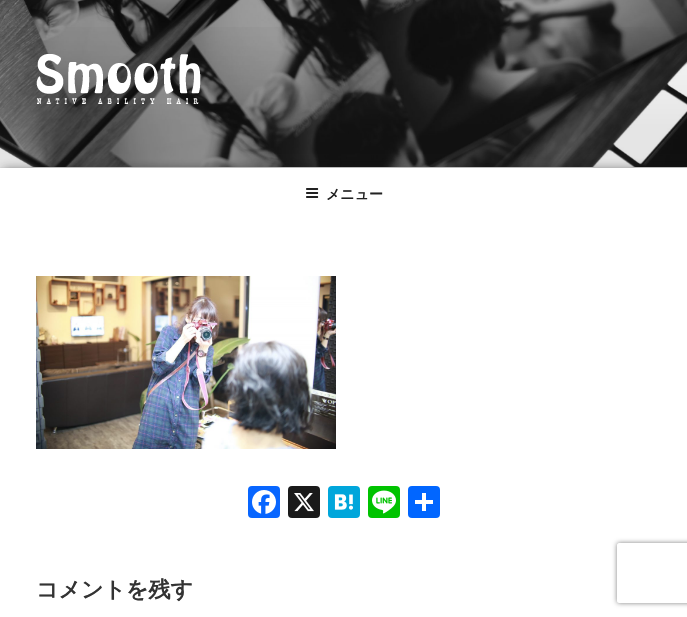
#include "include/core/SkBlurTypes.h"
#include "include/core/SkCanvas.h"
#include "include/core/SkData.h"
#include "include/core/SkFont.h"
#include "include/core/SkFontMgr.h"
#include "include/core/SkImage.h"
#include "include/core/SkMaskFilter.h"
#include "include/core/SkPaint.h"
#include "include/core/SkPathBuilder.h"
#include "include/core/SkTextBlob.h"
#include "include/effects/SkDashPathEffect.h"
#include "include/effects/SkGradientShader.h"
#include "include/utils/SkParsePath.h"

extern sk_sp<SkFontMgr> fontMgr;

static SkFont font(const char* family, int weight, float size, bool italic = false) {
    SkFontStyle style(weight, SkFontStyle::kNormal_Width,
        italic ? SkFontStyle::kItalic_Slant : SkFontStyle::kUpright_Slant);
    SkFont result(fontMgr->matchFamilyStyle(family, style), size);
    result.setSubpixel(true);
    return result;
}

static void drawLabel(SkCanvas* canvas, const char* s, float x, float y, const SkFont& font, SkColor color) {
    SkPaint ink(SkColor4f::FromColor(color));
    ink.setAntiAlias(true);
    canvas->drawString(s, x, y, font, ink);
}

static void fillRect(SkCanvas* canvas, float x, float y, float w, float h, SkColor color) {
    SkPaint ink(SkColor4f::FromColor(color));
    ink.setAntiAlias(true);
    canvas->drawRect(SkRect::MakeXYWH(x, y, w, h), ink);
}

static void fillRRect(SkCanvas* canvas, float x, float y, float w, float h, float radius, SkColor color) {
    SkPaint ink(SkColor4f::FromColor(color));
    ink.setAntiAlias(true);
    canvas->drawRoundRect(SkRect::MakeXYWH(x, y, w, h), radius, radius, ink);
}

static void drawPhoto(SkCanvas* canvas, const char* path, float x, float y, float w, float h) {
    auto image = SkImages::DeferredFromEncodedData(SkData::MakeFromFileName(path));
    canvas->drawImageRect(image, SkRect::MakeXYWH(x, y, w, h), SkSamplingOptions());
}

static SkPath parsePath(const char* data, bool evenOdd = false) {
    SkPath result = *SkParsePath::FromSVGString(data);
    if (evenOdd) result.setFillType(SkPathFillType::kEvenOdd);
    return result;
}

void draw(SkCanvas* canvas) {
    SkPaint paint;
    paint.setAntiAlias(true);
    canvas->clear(0xFFFAFAFA);
    drawPhoto(canvas, "assets/img1.png", 0, 0, 687, 167);
    paint.setColor(0x801A1A1A);
    paint.setMaskFilter(SkMaskFilter::MakeBlur(kNormal_SkBlurStyle, 5));
    canvas->drawRect(SkRect::MakeXYWH(3, 169, 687, 54), paint);
    paint.setMaskFilter(nullptr);
    {
        const SkColor colors[] = {0x00000000, 0x1A000000, 0x1A000000};
        const float stops[] = {0, 0.75f, 1};
        const SkPoint ends[] = {{344, 0}, {344, 168}};
        paint.setShader(SkGradientShader::MakeLinear(ends, colors, stops, 3, SkTileMode::kClamp));
        paint.setAlpha(255);
    }
    canvas->drawRect(SkRect::MakeXYWH(0, 27, 687, 141), paint);
    drawPhoto(canvas, "assets/img2.png", 36, 54, 165, 50);
    fillRect(canvas, 0, 168, 687, 449, 0xFFFFFFFF);
    drawPhoto(canvas, "assets/img3.png", 306, 188, 13, 10);
    SkFont font1 = font("WenQuanYi Zen Hei", 700, 14);
    drawLabel(canvas, "メニュー", 326, 199, font1, 0xFF222222);
    drawPhoto(canvas, "assets/img4.png", 36, 276, 300, 173);
    fillRRect(canvas, 248, 486, 32, 32, 4, 0xFF0866FF);
    drawPhoto(canvas, "assets/img5.png", 252, 490, 24, 24);
    fillRRect(canvas, 288, 486, 32, 32, 4, 0xFF1A1A1A);
    drawPhoto(canvas, "assets/img6.png", 294, 493, 20, 19);
    fillRRect(canvas, 328, 486, 32, 32, 4, 0xFF00A6DB);
    drawPhoto(canvas, "assets/img7.png", 334, 494, 19, 16);
    fillRRect(canvas, 368, 486, 32, 32, 4, 0xFF00C300);
    drawPhoto(canvas, "assets/img8.png", 372, 490, 24, 24);
    fillRRect(canvas, 408, 486, 32, 32, 4, 0xFF0166FF);
    fillRect(canvas, 422, 493, 4, 18, 0xFFFFFFFF);
    fillRect(canvas, 415, 500, 18, 4, 0xFFFFFFFF);
    SkFont font2 = font("WenQuanYi Zen Hei", 700, 22);
    drawLabel(canvas, "コメントを残す", 36, 597, font2, 0xFF333333);
    canvas->save();
    canvas->clipPath(parsePath("M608 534H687V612H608ZM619 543H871C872 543 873 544 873 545V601C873 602 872 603 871 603H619C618 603 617 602 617 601V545C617 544 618 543 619 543Z", true), true);
    paint.setShader(nullptr);
    paint.setColor(0xFF808080);
    paint.setMaskFilter(SkMaskFilter::MakeBlur(kNormal_SkBlurStyle, 2.5f));
    canvas->drawRoundRect(SkRect::MakeXYWH(617, 543, 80, 60), 2, 2, paint);
    paint.setMaskFilter(nullptr);
    canvas->restore();
}
